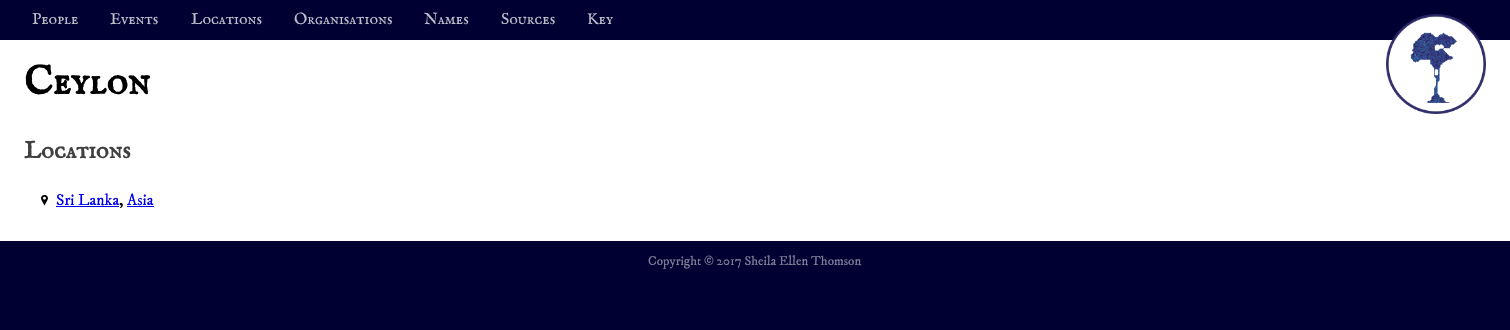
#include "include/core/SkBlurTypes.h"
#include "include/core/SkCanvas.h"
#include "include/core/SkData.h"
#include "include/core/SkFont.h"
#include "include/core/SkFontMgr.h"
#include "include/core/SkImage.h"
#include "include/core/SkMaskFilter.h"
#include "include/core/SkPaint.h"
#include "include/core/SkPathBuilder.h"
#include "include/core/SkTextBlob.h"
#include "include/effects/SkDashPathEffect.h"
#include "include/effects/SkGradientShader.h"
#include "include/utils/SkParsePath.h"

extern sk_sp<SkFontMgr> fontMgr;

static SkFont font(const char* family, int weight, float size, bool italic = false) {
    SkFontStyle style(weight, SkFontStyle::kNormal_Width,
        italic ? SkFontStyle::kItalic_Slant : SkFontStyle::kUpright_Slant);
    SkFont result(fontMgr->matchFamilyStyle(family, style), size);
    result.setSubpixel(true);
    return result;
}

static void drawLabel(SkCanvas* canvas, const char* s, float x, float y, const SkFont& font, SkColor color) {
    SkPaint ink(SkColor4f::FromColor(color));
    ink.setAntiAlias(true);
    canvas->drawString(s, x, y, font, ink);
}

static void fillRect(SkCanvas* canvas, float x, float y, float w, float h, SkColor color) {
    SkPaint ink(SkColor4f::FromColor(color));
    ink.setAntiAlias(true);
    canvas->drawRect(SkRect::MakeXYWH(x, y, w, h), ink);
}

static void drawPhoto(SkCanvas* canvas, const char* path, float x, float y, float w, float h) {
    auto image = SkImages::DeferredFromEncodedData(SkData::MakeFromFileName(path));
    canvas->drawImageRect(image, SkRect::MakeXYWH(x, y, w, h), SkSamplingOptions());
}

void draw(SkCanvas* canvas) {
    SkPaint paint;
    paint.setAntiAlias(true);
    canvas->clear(0xFF000033);
    SkFont font1 = font("IM FELL English SC", 400, 16);
    drawLabel(canvas, "People", 32, 24, font1, 0xFFBFBFCC);
    drawLabel(canvas, "Events", 110, 24, font1, 0xFFBFBFCC);
    drawLabel(canvas, "Locations", 191, 24, font1, 0xFFBFBFCC);
    drawLabel(canvas, "Organisations", 294, 24, font1, 0xFFBFBFCC);
    drawLabel(canvas, "Names", 424, 24, font1, 0xFFBFBFCC);
    drawLabel(canvas, "Sources", 501, 24, font1, 0xFFBFBFCC);
    drawLabel(canvas, "Key", 587, 24, font1, 0xFFBFBFCC);
    fillRect(canvas, 0, 40, 1510, 201, 0xFFFFFFFF);
    drawPhoto(canvas, "assets/img1.png", 1386, 14, 100, 100);
    SkFont font2 = font("IM FELL English SC", 700, 40);
    drawLabel(canvas, "Ceylon", 24, 94, font2, 0xFF000000);
    SkFont font3 = font("IM FELL English SC", 700, 24);
    drawLabel(canvas, "Locations", 24, 158, font3, 0xFF404040);
    drawPhoto(canvas, "assets/img2.png", 41, 194, 7, 12);
    SkFont font4 = font("IM FELL DW Pica", 400, 16);
    drawLabel(canvas, "Sri Lanka", 56, 205, font4, 0xFF0000EE);
    fillRect(canvas, 56, 206, 63, 1, 0xFF0000EE);
    drawLabel(canvas, ",", 119, 205, font4, 0xFF000000);
    drawLabel(canvas, "Asia", 127, 205, font4, 0xFF0000EE);
    fillRect(canvas, 127, 206, 27, 1, 0xFF0000EE);
    SkFont font5 = font("IM FELL DW Pica", 400, 13);
    drawLabel(canvas, "Copyright © 2017 Sheila Ellen Thomson", 648, 265, font5, 0xFF808099);
}
